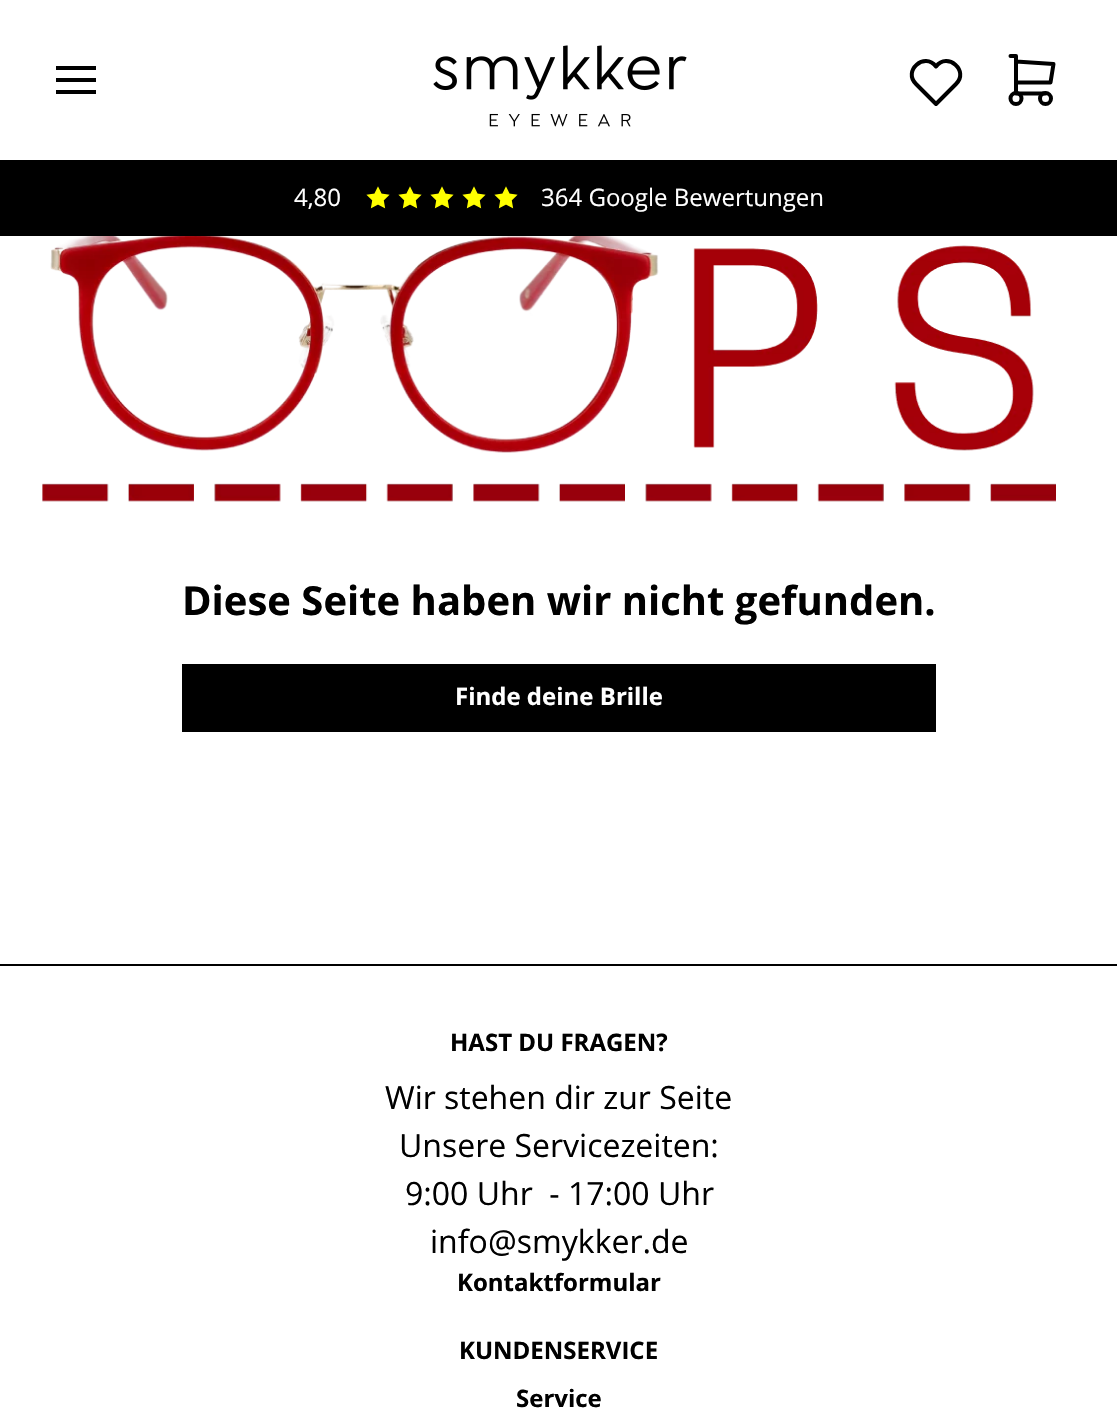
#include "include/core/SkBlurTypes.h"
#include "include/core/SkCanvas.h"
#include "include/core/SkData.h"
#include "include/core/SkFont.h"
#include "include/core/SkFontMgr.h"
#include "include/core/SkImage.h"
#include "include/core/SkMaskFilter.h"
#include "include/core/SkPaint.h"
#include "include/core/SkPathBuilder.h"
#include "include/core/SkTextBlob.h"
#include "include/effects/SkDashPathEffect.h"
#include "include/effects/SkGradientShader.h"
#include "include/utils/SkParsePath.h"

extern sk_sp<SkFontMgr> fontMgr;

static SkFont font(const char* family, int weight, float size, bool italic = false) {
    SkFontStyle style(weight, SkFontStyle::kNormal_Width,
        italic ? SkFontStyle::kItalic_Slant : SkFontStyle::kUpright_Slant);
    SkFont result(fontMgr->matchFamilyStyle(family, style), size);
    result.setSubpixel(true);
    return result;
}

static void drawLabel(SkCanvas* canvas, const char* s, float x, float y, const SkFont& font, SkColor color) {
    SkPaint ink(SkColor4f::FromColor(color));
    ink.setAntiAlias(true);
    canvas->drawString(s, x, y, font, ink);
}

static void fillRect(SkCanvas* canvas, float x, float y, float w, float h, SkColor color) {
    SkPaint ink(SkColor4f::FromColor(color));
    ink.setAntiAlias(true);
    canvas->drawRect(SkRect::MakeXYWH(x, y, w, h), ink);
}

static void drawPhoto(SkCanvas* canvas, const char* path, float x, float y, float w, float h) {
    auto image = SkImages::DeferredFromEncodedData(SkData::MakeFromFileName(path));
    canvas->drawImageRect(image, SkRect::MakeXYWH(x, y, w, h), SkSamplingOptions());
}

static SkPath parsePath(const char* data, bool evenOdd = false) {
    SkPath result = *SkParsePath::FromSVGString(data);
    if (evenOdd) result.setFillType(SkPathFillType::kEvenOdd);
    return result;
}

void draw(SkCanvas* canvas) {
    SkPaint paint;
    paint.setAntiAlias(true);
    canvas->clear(0xFFFFFFFF);
    fillRect(canvas, 56, 78, 40, 4, 0xFF000000);
    fillRect(canvas, 56, 66, 40, 4, 0xFF000000);
    fillRect(canvas, 56, 90, 40, 4, 0xFF000000);
    drawPhoto(canvas, "assets/img1.png", 433, 45, 254, 82);
    paint.setStroke(true);
    paint.setStrokeWidth(4);
    paint.setStrokeCap(SkPaint::kRound_Cap);
    paint.setStrokeJoin(SkPaint::kRound_Join);
    paint.setColor(0xFF000000);
    canvas->drawPath(parsePath("M956 84L936 104L916 84M916 84C902.5 71 924.5 51.5 936 66.5C947.5 51.5 969.5 71 956 84"), paint);
    paint.setStrokeCap(SkPaint::kButt_Cap);
    paint.setStrokeJoin(SkPaint::kMiter_Join);
    canvas->drawCircle(1016, 98.5f, 5.5f, paint);
    canvas->drawCircle(1045.5f, 98.5f, 5.5f, paint);
    paint.setStrokeCap(SkPaint::kRound_Cap);
    paint.setStrokeJoin(SkPaint::kRound_Join);
    canvas->drawPath(parsePath("M1045.5 93.5H1016V56H1010.5M1016 61.5L1053.5 64L1050.5 82.5H1016"), paint);
    fillRect(canvas, 0, 160, 1117, 76, 0xFF000000);
    SkFont font1 = font("Open Sans", 400, 24);
    drawLabel(canvas, "4,80", 294, 206, font1, 0xFFFFFFFF);
    drawPhoto(canvas, "assets/img2.png", 366, 186, 24, 23);
    drawPhoto(canvas, "assets/img2.png", 398, 186, 24, 23);
    drawPhoto(canvas, "assets/img2.png", 430, 186, 24, 23);
    drawPhoto(canvas, "assets/img2.png", 462, 186, 24, 23);
    drawPhoto(canvas, "assets/img2.png", 494, 186, 24, 23);
    drawLabel(canvas, "364 Google Bewertungen", 541, 206, font1, 0xFFFFFFFF);
    drawPhoto(canvas, "assets/img3.png", 42, 236, 1014, 266);
    SkFont font2 = font("Open Sans", 700, 40);
    drawLabel(canvas, "Diese Seite haben wir nicht gefunden.", 182, 615, font2, 0xFF000000);
    fillRect(canvas, 182, 664, 754, 68, 0xFF000000);
    SkFont font3 = font("Open Sans", 700, 24);
    drawLabel(canvas, "Finde deine Brille", 455, 705, font3, 0xFFFFFFFF);
    fillRect(canvas, 0, 964, 1117, 2, 0xFF000000);
    drawLabel(canvas, "HAST DU FRAGEN?", 450, 1051, font3, 0xFF000000);
    SkFont font4 = font("Open Sans", 400, 32);
    drawLabel(canvas, "Wir stehen dir zur Seite", 385, 1109, font4, 0xFF000000);
    drawLabel(canvas, "Unsere Servicezeiten:", 399, 1157, font4, 0xFF000000);
    drawLabel(canvas, "9:00 Uhr  - 17:00 Uhr", 405, 1205, font4, 0xFF000000);
    drawLabel(canvas, "info@smykker.de", 430, 1253, font4, 0xFF000000);
    drawLabel(canvas, "Kontaktformular", 457, 1291, font3, 0xFF000000);
    drawLabel(canvas, "KUNDENSERVICE", 459, 1359, font3, 0xFF000000);
    drawLabel(canvas, "Service", 516, 1407, font3, 0xFF000000);
}
